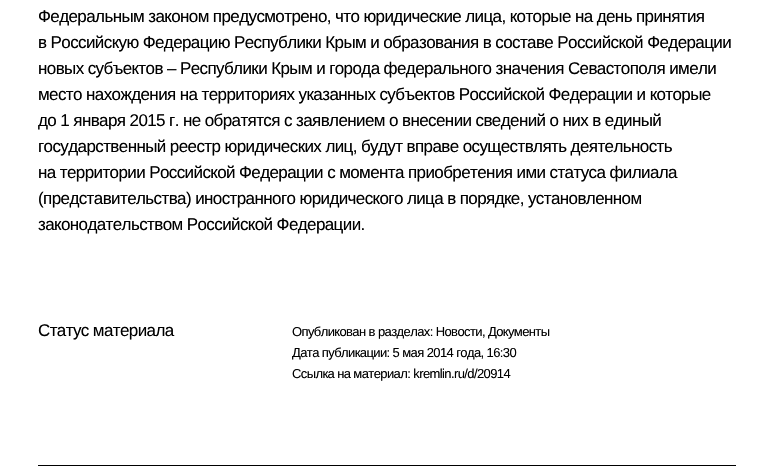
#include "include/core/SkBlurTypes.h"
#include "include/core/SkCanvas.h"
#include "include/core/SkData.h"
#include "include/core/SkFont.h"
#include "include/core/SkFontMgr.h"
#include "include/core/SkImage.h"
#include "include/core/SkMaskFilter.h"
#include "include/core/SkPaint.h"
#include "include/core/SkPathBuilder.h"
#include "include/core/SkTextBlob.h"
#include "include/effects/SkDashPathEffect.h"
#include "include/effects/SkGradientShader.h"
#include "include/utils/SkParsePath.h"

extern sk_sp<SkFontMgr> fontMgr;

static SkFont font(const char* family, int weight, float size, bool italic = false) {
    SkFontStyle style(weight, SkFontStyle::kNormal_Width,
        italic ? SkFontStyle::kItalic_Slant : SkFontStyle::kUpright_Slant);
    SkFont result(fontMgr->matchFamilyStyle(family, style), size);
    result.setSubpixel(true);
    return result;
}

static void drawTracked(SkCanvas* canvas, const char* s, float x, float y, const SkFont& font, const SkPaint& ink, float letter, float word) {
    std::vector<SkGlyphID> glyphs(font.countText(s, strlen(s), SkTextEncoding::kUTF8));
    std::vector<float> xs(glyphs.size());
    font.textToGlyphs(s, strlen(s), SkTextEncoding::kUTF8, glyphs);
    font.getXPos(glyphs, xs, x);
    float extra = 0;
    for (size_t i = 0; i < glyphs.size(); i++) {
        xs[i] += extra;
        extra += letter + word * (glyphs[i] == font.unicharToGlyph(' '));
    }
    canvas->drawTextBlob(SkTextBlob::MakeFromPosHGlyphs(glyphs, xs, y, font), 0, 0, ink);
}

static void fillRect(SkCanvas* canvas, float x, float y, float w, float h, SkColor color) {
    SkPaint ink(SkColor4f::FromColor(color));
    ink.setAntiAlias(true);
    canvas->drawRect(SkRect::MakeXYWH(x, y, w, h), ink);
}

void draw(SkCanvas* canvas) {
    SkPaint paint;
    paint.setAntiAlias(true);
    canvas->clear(0xFFFFFFFF);
    fillRect(canvas, 38, 465, 698, 1, 0xFF000000);
    SkFont font1 = font("Liberation Sans", 400, 17);
    paint.setColor(0xFF000000);
    drawTracked(canvas, "Федеральным законом предусмотрено, что юридические лица, которые на день принятия", 38, 22, font1, paint, -0.6f, 0);
    drawTracked(canvas, "в Российскую Федерацию Республики Крым и образования в составе Российской Федерации", 38, 48, font1, paint, -0.6f, 0);
    drawTracked(canvas, "новых субъектов – Республики Крым и города федерального значения Севастополя имели", 38, 74, font1, paint, -0.6f, 0);
    drawTracked(canvas, "место нахождения на территориях указанных субъектов Российской Федерации и которые", 38, 100, font1, paint, -0.6f, 0);
    drawTracked(canvas, "до 1 января 2015 г. не обратятся с заявлением о внесении сведений о них в единый", 38, 126, font1, paint, -0.6f, 0);
    drawTracked(canvas, "государственный реестр юридических лиц, будут вправе осуществлять деятельность", 38, 152, font1, paint, -0.6f, 0);
    drawTracked(canvas, "на территории Российской Федерации с момента приобретения ими статуса филиала", 38, 178, font1, paint, -0.6f, 0);
    drawTracked(canvas, "(представительства) иностранного юридического лица в порядке, установленном", 38, 204, font1, paint, -0.6f, 0);
    drawTracked(canvas, "законодательством Российской Федерации.", 38, 230, font1, paint, -0.6f, 0);
    drawTracked(canvas, "Статус материала", 38, 336, font1, paint, -0.6f, 0);
    SkFont font2 = font("Liberation Sans", 400, 13);
    drawTracked(canvas, "Опубликован в разделах: Новости, Документы", 292, 336, font2, paint, -0.6f, 0);
    drawTracked(canvas, "Дата публикации: 5 мая 2014 года, 16:30", 292, 357, font2, paint, -0.6f, 0);
    drawTracked(canvas, "Ссылка на материал: kremlin.ru/d/20914", 292, 378, font2, paint, -0.6f, 0);
}
